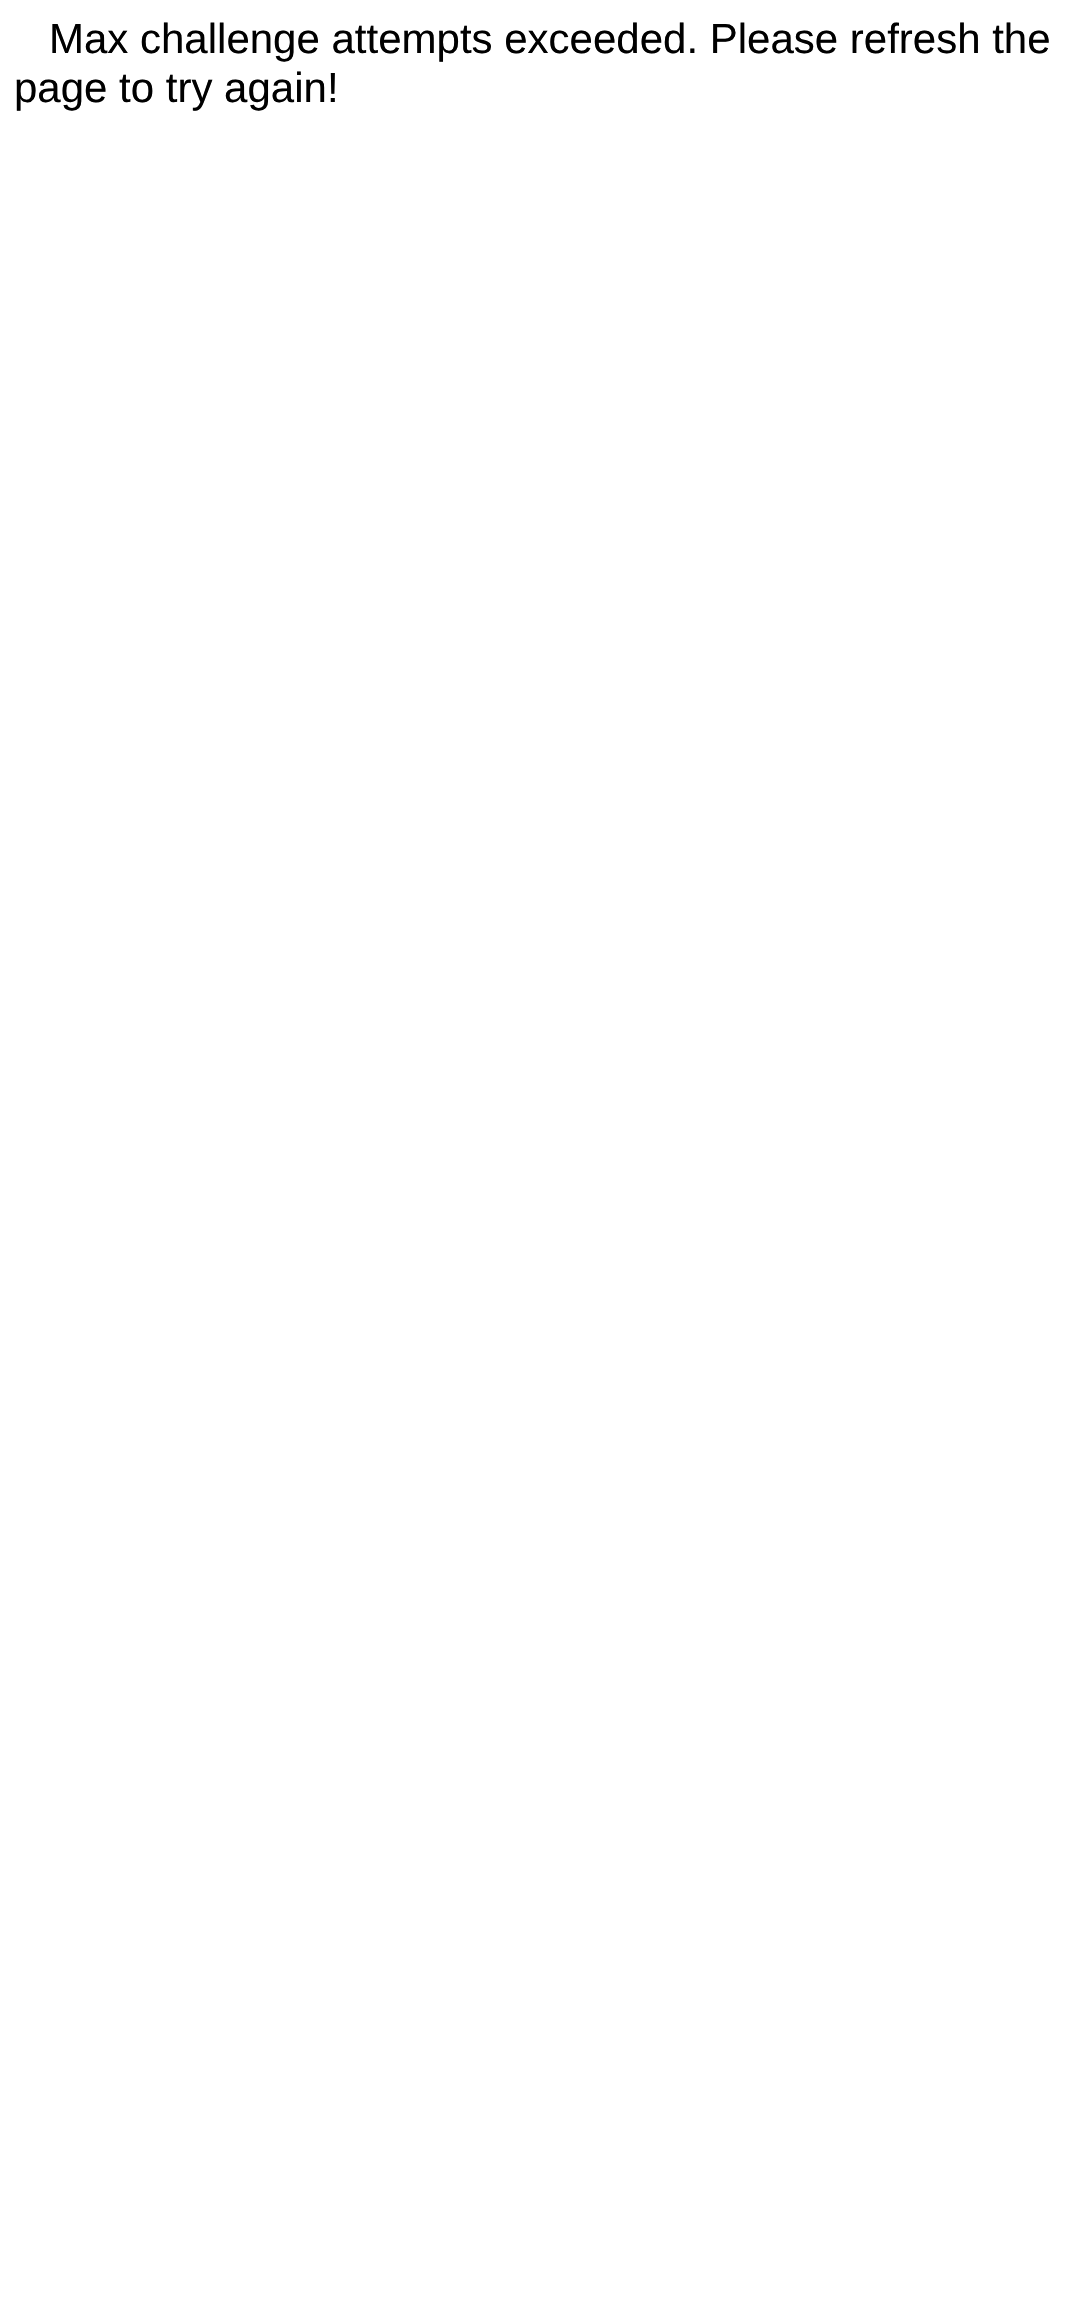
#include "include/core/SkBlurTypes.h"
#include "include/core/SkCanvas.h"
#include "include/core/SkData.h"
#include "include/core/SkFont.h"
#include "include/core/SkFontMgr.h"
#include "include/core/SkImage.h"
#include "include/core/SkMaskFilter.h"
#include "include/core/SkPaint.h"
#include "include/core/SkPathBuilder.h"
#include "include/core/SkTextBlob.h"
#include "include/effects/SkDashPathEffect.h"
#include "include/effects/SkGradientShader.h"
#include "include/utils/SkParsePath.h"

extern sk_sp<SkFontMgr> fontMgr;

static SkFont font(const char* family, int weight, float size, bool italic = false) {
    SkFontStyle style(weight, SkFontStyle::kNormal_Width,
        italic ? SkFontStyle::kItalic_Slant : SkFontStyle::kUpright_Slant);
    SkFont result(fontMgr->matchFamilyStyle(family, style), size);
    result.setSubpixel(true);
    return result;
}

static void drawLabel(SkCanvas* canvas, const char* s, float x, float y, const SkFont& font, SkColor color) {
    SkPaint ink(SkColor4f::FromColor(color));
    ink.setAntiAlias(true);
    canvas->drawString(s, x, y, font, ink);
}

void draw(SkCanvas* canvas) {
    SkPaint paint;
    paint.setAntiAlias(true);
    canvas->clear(0xFFFFFFFF);
    SkFont font1 = font("Liberation Sans", 400, 42);
    drawLabel(canvas, "Max challenge attempts exceeded. Please refresh the", 49, 53, font1, 0xFF000000);
    drawLabel(canvas, "page to try again!", 14, 102, font1, 0xFF000000);
}
